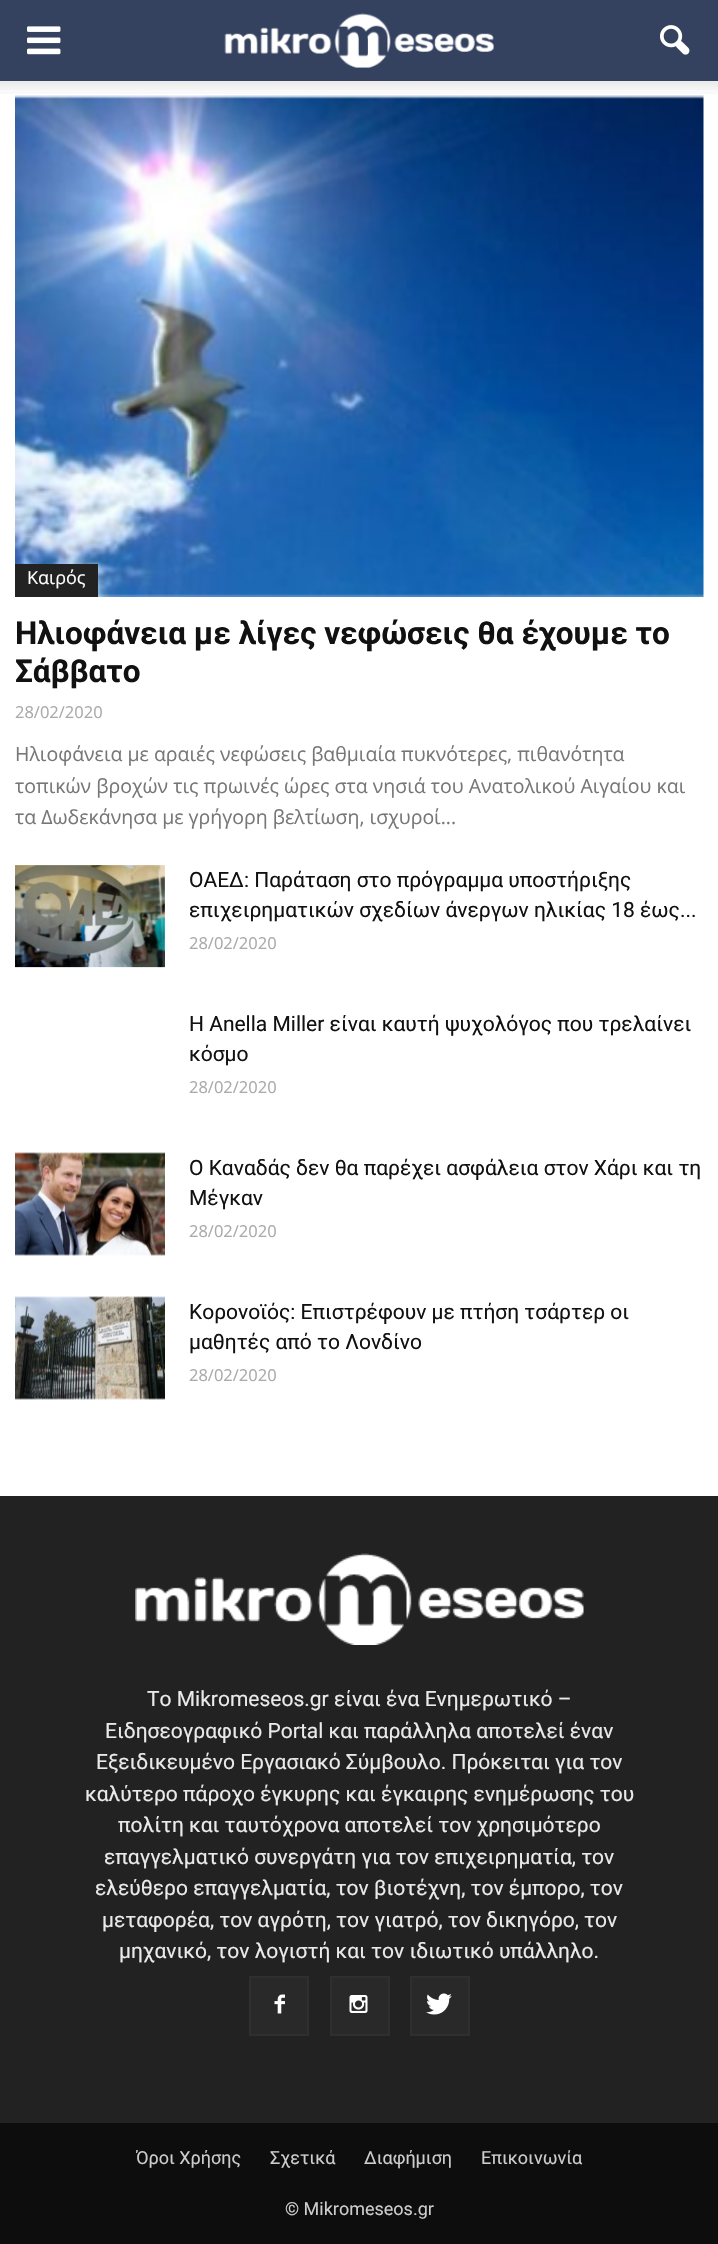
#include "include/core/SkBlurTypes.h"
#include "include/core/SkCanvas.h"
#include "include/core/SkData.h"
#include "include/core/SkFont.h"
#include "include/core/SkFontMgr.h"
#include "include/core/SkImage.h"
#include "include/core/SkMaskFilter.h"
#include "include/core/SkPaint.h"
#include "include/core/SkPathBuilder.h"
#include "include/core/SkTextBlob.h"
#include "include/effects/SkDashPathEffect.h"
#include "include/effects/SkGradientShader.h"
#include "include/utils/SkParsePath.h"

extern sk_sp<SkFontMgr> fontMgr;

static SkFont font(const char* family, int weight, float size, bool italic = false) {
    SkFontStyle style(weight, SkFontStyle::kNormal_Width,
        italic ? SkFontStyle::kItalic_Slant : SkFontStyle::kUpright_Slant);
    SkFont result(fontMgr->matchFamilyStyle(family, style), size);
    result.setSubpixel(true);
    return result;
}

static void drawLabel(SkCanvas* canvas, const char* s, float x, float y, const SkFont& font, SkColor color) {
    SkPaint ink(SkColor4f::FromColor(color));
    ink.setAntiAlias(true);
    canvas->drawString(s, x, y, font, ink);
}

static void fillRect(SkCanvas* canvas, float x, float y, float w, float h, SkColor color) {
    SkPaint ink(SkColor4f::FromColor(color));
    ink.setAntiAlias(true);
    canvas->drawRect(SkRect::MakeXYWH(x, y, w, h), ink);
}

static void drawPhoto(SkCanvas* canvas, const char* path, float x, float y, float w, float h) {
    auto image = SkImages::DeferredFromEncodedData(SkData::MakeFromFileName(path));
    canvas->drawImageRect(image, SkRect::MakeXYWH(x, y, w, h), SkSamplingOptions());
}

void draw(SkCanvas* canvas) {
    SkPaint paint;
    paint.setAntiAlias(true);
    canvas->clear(0xFFFFFFFF);
    fillRect(canvas, 0, 0, 718, 81, 0xFF344260);
    drawPhoto(canvas, "assets/img1.png", 27, 26, 34, 29);
    drawPhoto(canvas, "assets/img2.png", 224, 13, 270, 55);
    drawPhoto(canvas, "assets/img3.png", 660, 25, 30, 30);
    drawPhoto(canvas, "assets/img4.png", 0, 81, 718, 13);
    drawPhoto(canvas, "assets/img5.png", 15, 95, 689, 502);
    fillRect(canvas, 15, 564, 83, 33, 0xFF222222);
    SkFont font1 = font("Open Sans", 400, 18);
    drawLabel(canvas, "Καιρός", 27, 584, font1, 0xFFFFFFFF);
    SkFont font2 = font("Roboto", 700, 31.5f);
    drawLabel(canvas, "Ηλιοφάνεια με λίγες νεφώσεις θα έχουμε το", 15, 644, font2, 0xFF111111);
    drawLabel(canvas, "Σάββατο", 15, 682, font2, 0xFF111111);
    SkFont font3 = font("Open Sans", 400, 16.5f);
    drawLabel(canvas, "28/02/2020", 15, 718, font3, 0xFFAAAAAA);
    SkFont font4 = font("Open Sans", 400, 19.5f);
    drawLabel(canvas, "Ηλιοφάνεια με αραιές νεφώσεις βαθμιαία πυκνότερες, πιθανότητα", 15, 761, font4, 0xFF777777);
    drawLabel(canvas, "τοπικών βροχών τις πρωινές ώρες στα νησιά του Ανατολικού Αιγαίου και", 15, 793, font4, 0xFF777777);
    drawLabel(canvas, "τα Δωδεκάνησα με γρήγορη βελτίωση, ισχυροί...", 15, 824, font4, 0xFF777777);
    drawPhoto(canvas, "assets/img6.png", 15, 865, 150, 103);
    SkFont font5 = font("Roboto", 400, 21);
    drawLabel(canvas, "ΟΑΕΔ: Παράταση στο πρόγραμμα υποστήριξης", 189, 887, font5, 0xFF111111);
    drawLabel(canvas, "επιχειρηματικών σχεδίων άνεργων ηλικίας 18 έως...", 189, 917, font5, 0xFF111111);
    drawLabel(canvas, "28/02/2020", 189, 949, font3, 0xFFAAAAAA);
    drawLabel(canvas, "Η Anella Miller είναι καυτή ψυχολόγος που τρελαίνει", 189, 1031, font5, 0xFF111111);
    drawLabel(canvas, "κόσμο", 189, 1061, font5, 0xFF111111);
    drawLabel(canvas, "28/02/2020", 189, 1093, font3, 0xFFAAAAAA);
    drawPhoto(canvas, "assets/img7.png", 15, 1152, 150, 104);
    drawLabel(canvas, "Ο Καναδάς δεν θα παρέχει ασφάλεια στον Χάρι και τη", 189, 1175, font5, 0xFF111111);
    drawLabel(canvas, "Μέγκαν", 189, 1205, font5, 0xFF111111);
    drawLabel(canvas, "28/02/2020", 189, 1237, font3, 0xFFAAAAAA);
    drawPhoto(canvas, "assets/img8.png", 15, 1296, 150, 104);
    drawLabel(canvas, "Κορονοϊός: Επιστρέφουν με πτήση τσάρτερ οι", 189, 1319, font5, 0xFF111111);
    drawLabel(canvas, "μαθητές από το Λονδίνο", 189, 1349, font5, 0xFF111111);
    drawLabel(canvas, "28/02/2020", 189, 1381, font3, 0xFFAAAAAA);
    fillRect(canvas, 0, 1496, 718, 627, 0xFF222222);
    drawPhoto(canvas, "assets/img9.png", 135, 1553, 449, 92);
    drawLabel(canvas, "Το Mikromeseos.gr είναι ένα Ενημερωτικό –", 147, 1706, font5, 0xFFEAEAEA);
    drawLabel(canvas, "Ειδησεογραφικό Portal και παράλληλα αποτελεί έναν", 105, 1738, font5, 0xFFEAEAEA);
    drawLabel(canvas, "Εξειδικευμένο Εργασιακό Σύμβουλο. Πρόκειται για τον", 96, 1769, font5, 0xFFEAEAEA);
    drawLabel(canvas, "καλύτερο πάροχο έγκυρης και έγκαιρης ενημέρωσης του", 85, 1801, font5, 0xFFEAEAEA);
    drawLabel(canvas, "πολίτη και ταυτόχρονα αποτελεί τον χρησιμότερο", 118, 1832, font5, 0xFFEAEAEA);
    drawLabel(canvas, "επαγγελματικό συνεργάτη για τον επιχειρηματία, τον", 104, 1864, font5, 0xFFEAEAEA);
    drawLabel(canvas, "ελεύθερο επαγγελματία, τον βιοτέχνη, τον έμπορο, τον", 95, 1895, font5, 0xFFEAEAEA);
    drawLabel(canvas, "μεταφορέα, τον αγρότη, τον γιατρό, τον δικηγόρο, τον", 102, 1927, font5, 0xFFEAEAEA);
    drawLabel(canvas, "μηχανικό, τον λογιστή και τον ιδιωτικό υπάλληλο.", 119, 1958, font5, 0xFFEAEAEA);
    fillRect(canvas, 251, 1978, 56, 56, 0xFF292929);
    drawPhoto(canvas, "assets/img10.png", 274, 1994, 11, 20);
    paint.setStroke(true);
    paint.setStrokeWidth(2);
    paint.setColor(0xFF2F2F2F);
    canvas->drawRect(SkRect::MakeXYWH(250, 1977, 58, 58), paint);
    fillRect(canvas, 332, 1978, 56, 56, 0xFF292929);
    drawPhoto(canvas, "assets/img11.png", 349, 1995, 19, 18);
    canvas->drawRect(SkRect::MakeXYWH(331, 1977, 58, 58), paint);
    fillRect(canvas, 412, 1978, 56, 56, 0xFF292929);
    drawPhoto(canvas, "assets/img12.png", 426, 1993, 26, 22);
    canvas->drawRect(SkRect::MakeXYWH(411, 1977, 58, 58), paint);
    fillRect(canvas, 0, 2123, 718, 121, 0xFF0D0D0D);
    SkFont font6 = font("Roboto", 400, 18);
    drawLabel(canvas, "Όροι Χρήσης", 136, 2164, font6, 0xFFCCCCCC);
    drawLabel(canvas, "Σχετικά", 270, 2164, font6, 0xFFCCCCCC);
    drawLabel(canvas, "Διαφήμιση", 364, 2164, font6, 0xFFCCCCCC);
    drawLabel(canvas, "Επικοινωνία", 481, 2164, font6, 0xFFCCCCCC);
    drawLabel(canvas, "© Mikromeseos.gr", 285, 2215, font6, 0xFFCCCCCC);
}
